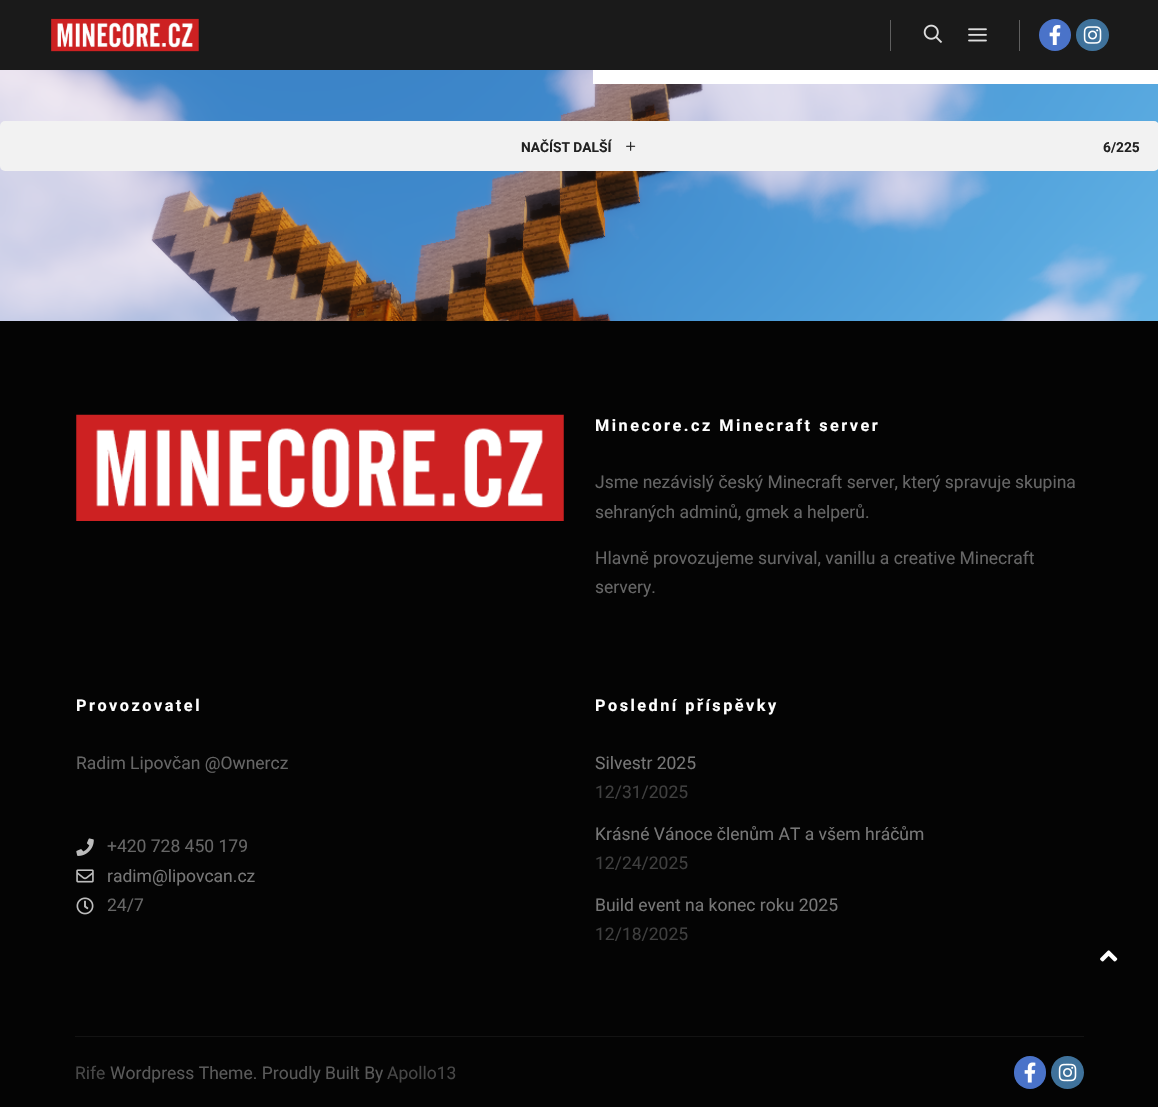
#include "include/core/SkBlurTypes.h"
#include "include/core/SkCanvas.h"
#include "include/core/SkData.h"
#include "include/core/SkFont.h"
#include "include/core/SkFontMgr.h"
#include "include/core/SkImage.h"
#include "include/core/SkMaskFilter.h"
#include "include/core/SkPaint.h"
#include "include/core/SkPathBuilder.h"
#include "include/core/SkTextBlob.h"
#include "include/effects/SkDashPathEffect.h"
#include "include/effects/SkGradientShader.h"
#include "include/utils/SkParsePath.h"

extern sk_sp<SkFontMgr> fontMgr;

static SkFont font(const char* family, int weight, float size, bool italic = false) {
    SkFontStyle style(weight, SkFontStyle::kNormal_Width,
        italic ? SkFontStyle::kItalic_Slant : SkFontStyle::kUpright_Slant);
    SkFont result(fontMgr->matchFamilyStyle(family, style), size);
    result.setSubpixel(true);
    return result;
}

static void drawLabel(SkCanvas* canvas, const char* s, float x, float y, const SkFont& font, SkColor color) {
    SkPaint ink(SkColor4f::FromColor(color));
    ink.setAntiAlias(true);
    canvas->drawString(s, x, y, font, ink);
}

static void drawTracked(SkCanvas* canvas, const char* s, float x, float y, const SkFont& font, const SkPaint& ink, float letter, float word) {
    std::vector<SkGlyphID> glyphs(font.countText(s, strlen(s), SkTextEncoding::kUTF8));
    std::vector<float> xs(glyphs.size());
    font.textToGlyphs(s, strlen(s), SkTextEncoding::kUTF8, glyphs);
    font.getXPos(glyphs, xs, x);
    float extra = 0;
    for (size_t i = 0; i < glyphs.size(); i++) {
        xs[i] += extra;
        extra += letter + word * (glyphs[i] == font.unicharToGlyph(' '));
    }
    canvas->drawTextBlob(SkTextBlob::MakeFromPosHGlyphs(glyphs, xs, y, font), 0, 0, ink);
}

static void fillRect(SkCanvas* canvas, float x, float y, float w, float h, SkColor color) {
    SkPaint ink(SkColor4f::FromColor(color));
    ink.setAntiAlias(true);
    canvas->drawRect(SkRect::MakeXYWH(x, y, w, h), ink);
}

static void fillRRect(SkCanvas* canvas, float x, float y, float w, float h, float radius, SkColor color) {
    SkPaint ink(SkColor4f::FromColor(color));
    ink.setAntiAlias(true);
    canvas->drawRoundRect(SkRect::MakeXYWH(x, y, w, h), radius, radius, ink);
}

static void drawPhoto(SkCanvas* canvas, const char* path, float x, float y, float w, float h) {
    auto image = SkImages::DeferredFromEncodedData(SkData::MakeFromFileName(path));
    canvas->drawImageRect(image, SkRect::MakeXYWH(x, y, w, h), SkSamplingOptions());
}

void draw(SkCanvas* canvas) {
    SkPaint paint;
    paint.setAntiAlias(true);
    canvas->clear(0xFFFFFFFF);
    fillRect(canvas, 0, 0, 1158, 70, 0xFF1A1A1A);
    drawPhoto(canvas, "assets/img1.png", 51, 18, 148, 34);
    fillRect(canvas, 890, 20, 1, 31, 0xFF5F5F5F);
    drawPhoto(canvas, "assets/img2.png", 923, 24, 20, 19);
    drawPhoto(canvas, "assets/img3.png", 968, 28, 19, 14);
    fillRect(canvas, 1019, 20, 1, 31, 0xFF5F5F5F);
    paint.setColor(0xFF4A73C9);
    canvas->drawCircle(1055, 35, 16, paint);
    drawPhoto(canvas, "assets/img4.png", 1049, 25, 12, 20);
    fillRRect(canvas, 1076, 19, 33, 32, 16, 0xFF3F729B);
    drawPhoto(canvas, "assets/img5.png", 1083, 26, 19, 18);
    drawPhoto(canvas, "assets/img6.png", 0, 70, 1158, 251);
    fillRect(canvas, 593, 70, 565, 14, 0xFFFFFFFF);
    fillRRect(canvas, 0, 121, 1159, 50, 5, 0xFFF2F2F2);
    SkFont font1 = font("Roboto", 700, 13.75f);
    drawLabel(canvas, "NAČÍST DALŠÍ", 521, 152, font1, 0xFF222222);
    drawPhoto(canvas, "assets/img7.png", 626, 141, 10, 10);
    drawLabel(canvas, "6/225", 1103, 152, font1, 0xFF222222);
    fillRect(canvas, 0, 321, 1158, 786, 0xFF040404);
    drawPhoto(canvas, "assets/img8.png", 76, 414, 488, 107);
    SkFont font2 = font("Roboto", 700, 16.25f);
    paint.setColor(0xFFFFFFFF);
    drawTracked(canvas, "Minecore.cz Minecraft server", 595, 431, font2, paint, 2.5f, 0);
    SkFont font3 = font("Roboto", 400, 17.5f);
    drawLabel(canvas, "Jsme nezávislý český Minecraft server, který spravuje skupina", 595, 488, font3, 0xFF666666);
    drawLabel(canvas, "sehraných adminů, gmek a helperů.", 595, 518, font3, 0xFF666666);
    drawLabel(canvas, "Hlavně provozujeme survival, vanillu a creative Minecraft", 595, 564, font3, 0xFF666666);
    drawLabel(canvas, "servery.", 595, 593, font3, 0xFF666666);
    drawTracked(canvas, "Provozovatel", 76, 711, font2, paint, 2.5f, 0);
    drawLabel(canvas, "Radim Lipovčan @Ownercz", 76, 769, font3, 0xFF666666);
    drawPhoto(canvas, "assets/img9.png", 76, 838, 18, 18);
    drawLabel(canvas, "+420 728 450 179", 107, 852, font3, 0xFF666666);
    drawPhoto(canvas, "assets/img10.png", 76, 869, 18, 14);
    drawLabel(canvas, "radim@lipovcan.cz", 107, 882, font3, 0xFF777777);
    drawPhoto(canvas, "assets/img11.png", 76, 897, 18, 18);
    drawLabel(canvas, "24/7", 107, 911, font3, 0xFF666666);
    drawTracked(canvas, "Poslední příspěvky", 595, 711, font2, paint, 2.5f, 0);
    drawLabel(canvas, "Silvestr 2025", 595, 769, font3, 0xFF777777);
    drawLabel(canvas, "12/31/2025", 595, 798, font3, 0xFF3F3F3F);
    drawLabel(canvas, "Krásné Vánoce členům AT a všem hráčům", 595, 840, font3, 0xFF777777);
    drawLabel(canvas, "12/24/2025", 595, 869, font3, 0xFF3F3F3F);
    drawLabel(canvas, "Build event na konec roku 2025", 595, 911, font3, 0xFF777777);
    drawLabel(canvas, "12/18/2025", 595, 940, font3, 0xFF3F3F3F);
    fillRect(canvas, 75, 1036, 1009, 1, 0xFF131313);
    drawLabel(canvas, "Rife", 75, 1079, font3, 0xFF474747);
    drawLabel(canvas, "Wordpress Theme. Proudly Built By", 110, 1079, font3, 0xFF595959);
    drawLabel(canvas, "Apollo13", 387, 1079, font3, 0xFF474747);
    fillRRect(canvas, 1014, 1056, 32, 33, 16, 0xFF4A73C9);
    drawPhoto(canvas, "assets/img12.png", 1024, 1062, 12, 21);
    paint.setColor(0xFF3F729B);
    canvas->drawCircle(1067.5f, 1072.5f, 16.5f, paint);
    drawPhoto(canvas, "assets/img13.png", 1058, 1063, 19, 19);
    drawPhoto(canvas, "assets/img14.png", 1100, 950, 18, 12);
}
